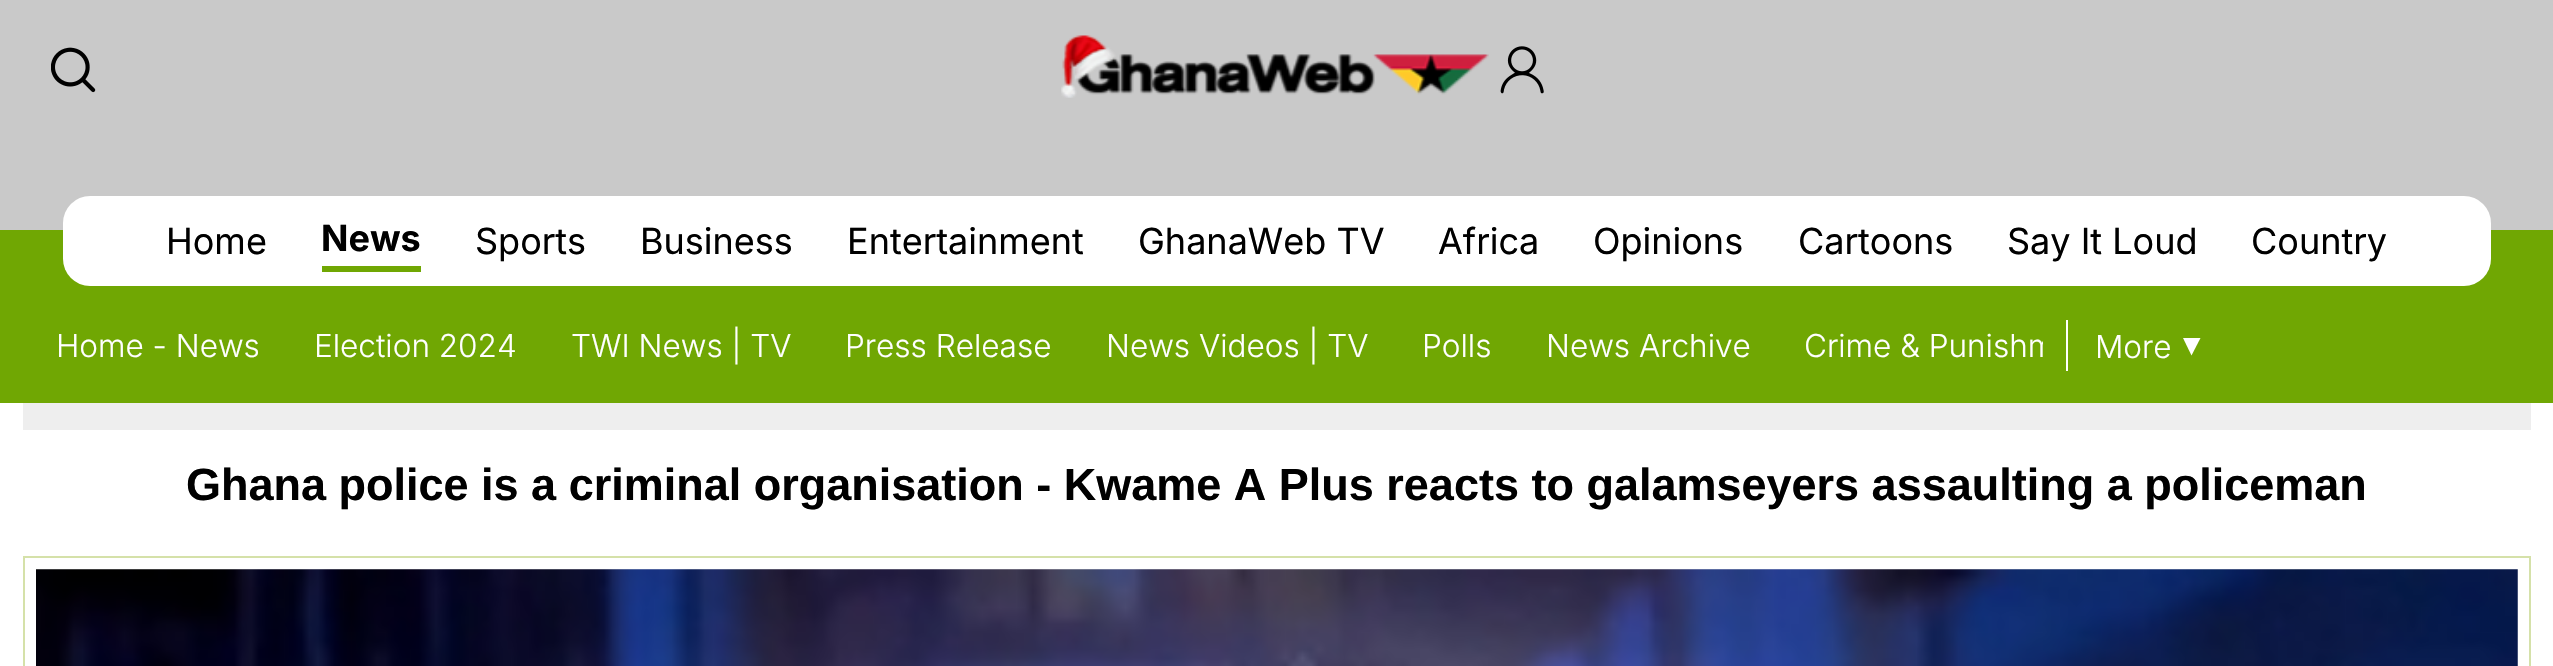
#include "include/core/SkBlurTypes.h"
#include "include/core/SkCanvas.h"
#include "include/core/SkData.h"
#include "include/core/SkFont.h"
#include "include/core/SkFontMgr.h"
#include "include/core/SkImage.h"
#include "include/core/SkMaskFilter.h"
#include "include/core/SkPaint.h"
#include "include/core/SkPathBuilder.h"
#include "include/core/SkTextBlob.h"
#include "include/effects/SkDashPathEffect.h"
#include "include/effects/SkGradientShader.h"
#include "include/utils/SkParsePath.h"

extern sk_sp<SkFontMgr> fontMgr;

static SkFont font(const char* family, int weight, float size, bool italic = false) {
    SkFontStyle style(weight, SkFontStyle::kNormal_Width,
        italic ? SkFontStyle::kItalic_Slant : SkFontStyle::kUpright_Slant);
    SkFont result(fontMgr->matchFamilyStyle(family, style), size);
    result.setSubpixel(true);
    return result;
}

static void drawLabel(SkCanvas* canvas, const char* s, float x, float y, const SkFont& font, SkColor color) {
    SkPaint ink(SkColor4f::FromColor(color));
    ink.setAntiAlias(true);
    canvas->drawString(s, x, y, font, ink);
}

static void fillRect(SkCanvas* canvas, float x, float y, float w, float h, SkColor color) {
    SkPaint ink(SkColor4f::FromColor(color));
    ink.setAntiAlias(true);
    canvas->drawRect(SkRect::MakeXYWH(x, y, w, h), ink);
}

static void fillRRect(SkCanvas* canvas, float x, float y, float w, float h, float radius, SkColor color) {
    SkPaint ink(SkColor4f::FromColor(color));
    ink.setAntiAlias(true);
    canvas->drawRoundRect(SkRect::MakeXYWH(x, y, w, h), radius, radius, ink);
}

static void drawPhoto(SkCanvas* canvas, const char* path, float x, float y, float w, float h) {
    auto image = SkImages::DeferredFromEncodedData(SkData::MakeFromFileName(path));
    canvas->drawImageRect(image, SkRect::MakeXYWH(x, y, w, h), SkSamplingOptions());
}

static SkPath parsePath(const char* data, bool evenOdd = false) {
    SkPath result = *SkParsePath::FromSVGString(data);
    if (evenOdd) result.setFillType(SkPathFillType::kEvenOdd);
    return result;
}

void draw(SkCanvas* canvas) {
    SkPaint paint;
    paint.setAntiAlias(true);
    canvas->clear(0xFFFFFFFF);
    fillRect(canvas, 0, 0, 2553, 230, 0xFFC9C9C9);
    drawPhoto(canvas, "assets/img1.png", 51, 47, 45, 46);
    drawPhoto(canvas, "assets/img2.png", 1061, 35, 428, 63);
    drawPhoto(canvas, "assets/img3.png", 1500, 46, 44, 48);
    fillRect(canvas, 0, 230, 2553, 173, 0xFF70A703);
    fillRRect(canvas, 63, 196, 2428, 90, 27, 0xFFFFFFFF);
    SkFont font1 = font("Inter", 400, 36);
    drawLabel(canvas, "Home", 166, 254, font1, 0xFF000000);
    fillRect(canvas, 322, 266, 99, 6, 0xFF70A703);
    SkFont font2 = font("Inter", 700, 36);
    drawLabel(canvas, "News", 321, 251, font2, 0xFF000000);
    drawLabel(canvas, "Sports", 475, 254, font1, 0xFF000000);
    drawLabel(canvas, "Business", 640, 254, font1, 0xFF000000);
    drawLabel(canvas, "Entertainment", 847, 254, font1, 0xFF000000);
    drawLabel(canvas, "GhanaWeb TV", 1138, 254, font1, 0xFF000000);
    drawLabel(canvas, "Africa", 1438, 254, font1, 0xFF000000);
    drawLabel(canvas, "Opinions", 1593, 254, font1, 0xFF000000);
    drawLabel(canvas, "Cartoons", 1798, 254, font1, 0xFF000000);
    drawLabel(canvas, "Say It Loud", 2007, 254, font1, 0xFF000000);
    drawLabel(canvas, "Country", 2251, 254, font1, 0xFF000000);
    SkFont font3 = font("Inter", 300, 31.5f);
    drawLabel(canvas, "Home - News", 56, 357, font3, 0xFFFFFFFF);
    drawLabel(canvas, "Election 2024", 314, 357, font3, 0xFFFFFFFF);
    drawLabel(canvas, "TWI News | TV", 571, 357, font3, 0xFFFFFFFF);
    drawLabel(canvas, "Press Release", 845, 357, font3, 0xFFFFFFFF);
    drawLabel(canvas, "News Videos | TV", 1106, 357, font3, 0xFFFFFFFF);
    drawLabel(canvas, "Polls", 1422, 357, font3, 0xFFFFFFFF);
    drawLabel(canvas, "News Archive", 1546, 357, font3, 0xFFFFFFFF);
    canvas->save();
    canvas->clipRect(SkRect::MakeXYWH(29, 306, 2014, 77));
    drawLabel(canvas, "Crime & Punishm", 1804, 357, font3, 0xFFFFFFFF);
    canvas->restore();
    fillRect(canvas, 2066, 320, 2, 51, 0xFFFFFFFF);
    drawLabel(canvas, "More", 2095, 358, font3, 0xFFFFFFFF);
    paint.setColor(0xFFFFFFFF);
    canvas->drawPath(parsePath("M2183 338L2191.5 355.5L2200.5 338Z"), paint);
    fillRect(canvas, 23, 403, 2508, 27, 0xFFEEEEEE);
    SkFont font4 = font("Liberation Sans", 700, 45);
    drawLabel(canvas, "Ghana police is a criminal organisation - Kwame A Plus reacts to galamseyers assaulting a policeman", 186, 500, font4, 0xFF000000);
    paint.setStroke(true);
    paint.setStrokeWidth(2);
    paint.setColor(0xFFD5E1A9);
    canvas->drawRect(SkRect::MakeXYWH(24, 557, 2506, 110), paint);
    drawPhoto(canvas, "assets/img4.png", 36, 569, 2482, 97);
}
